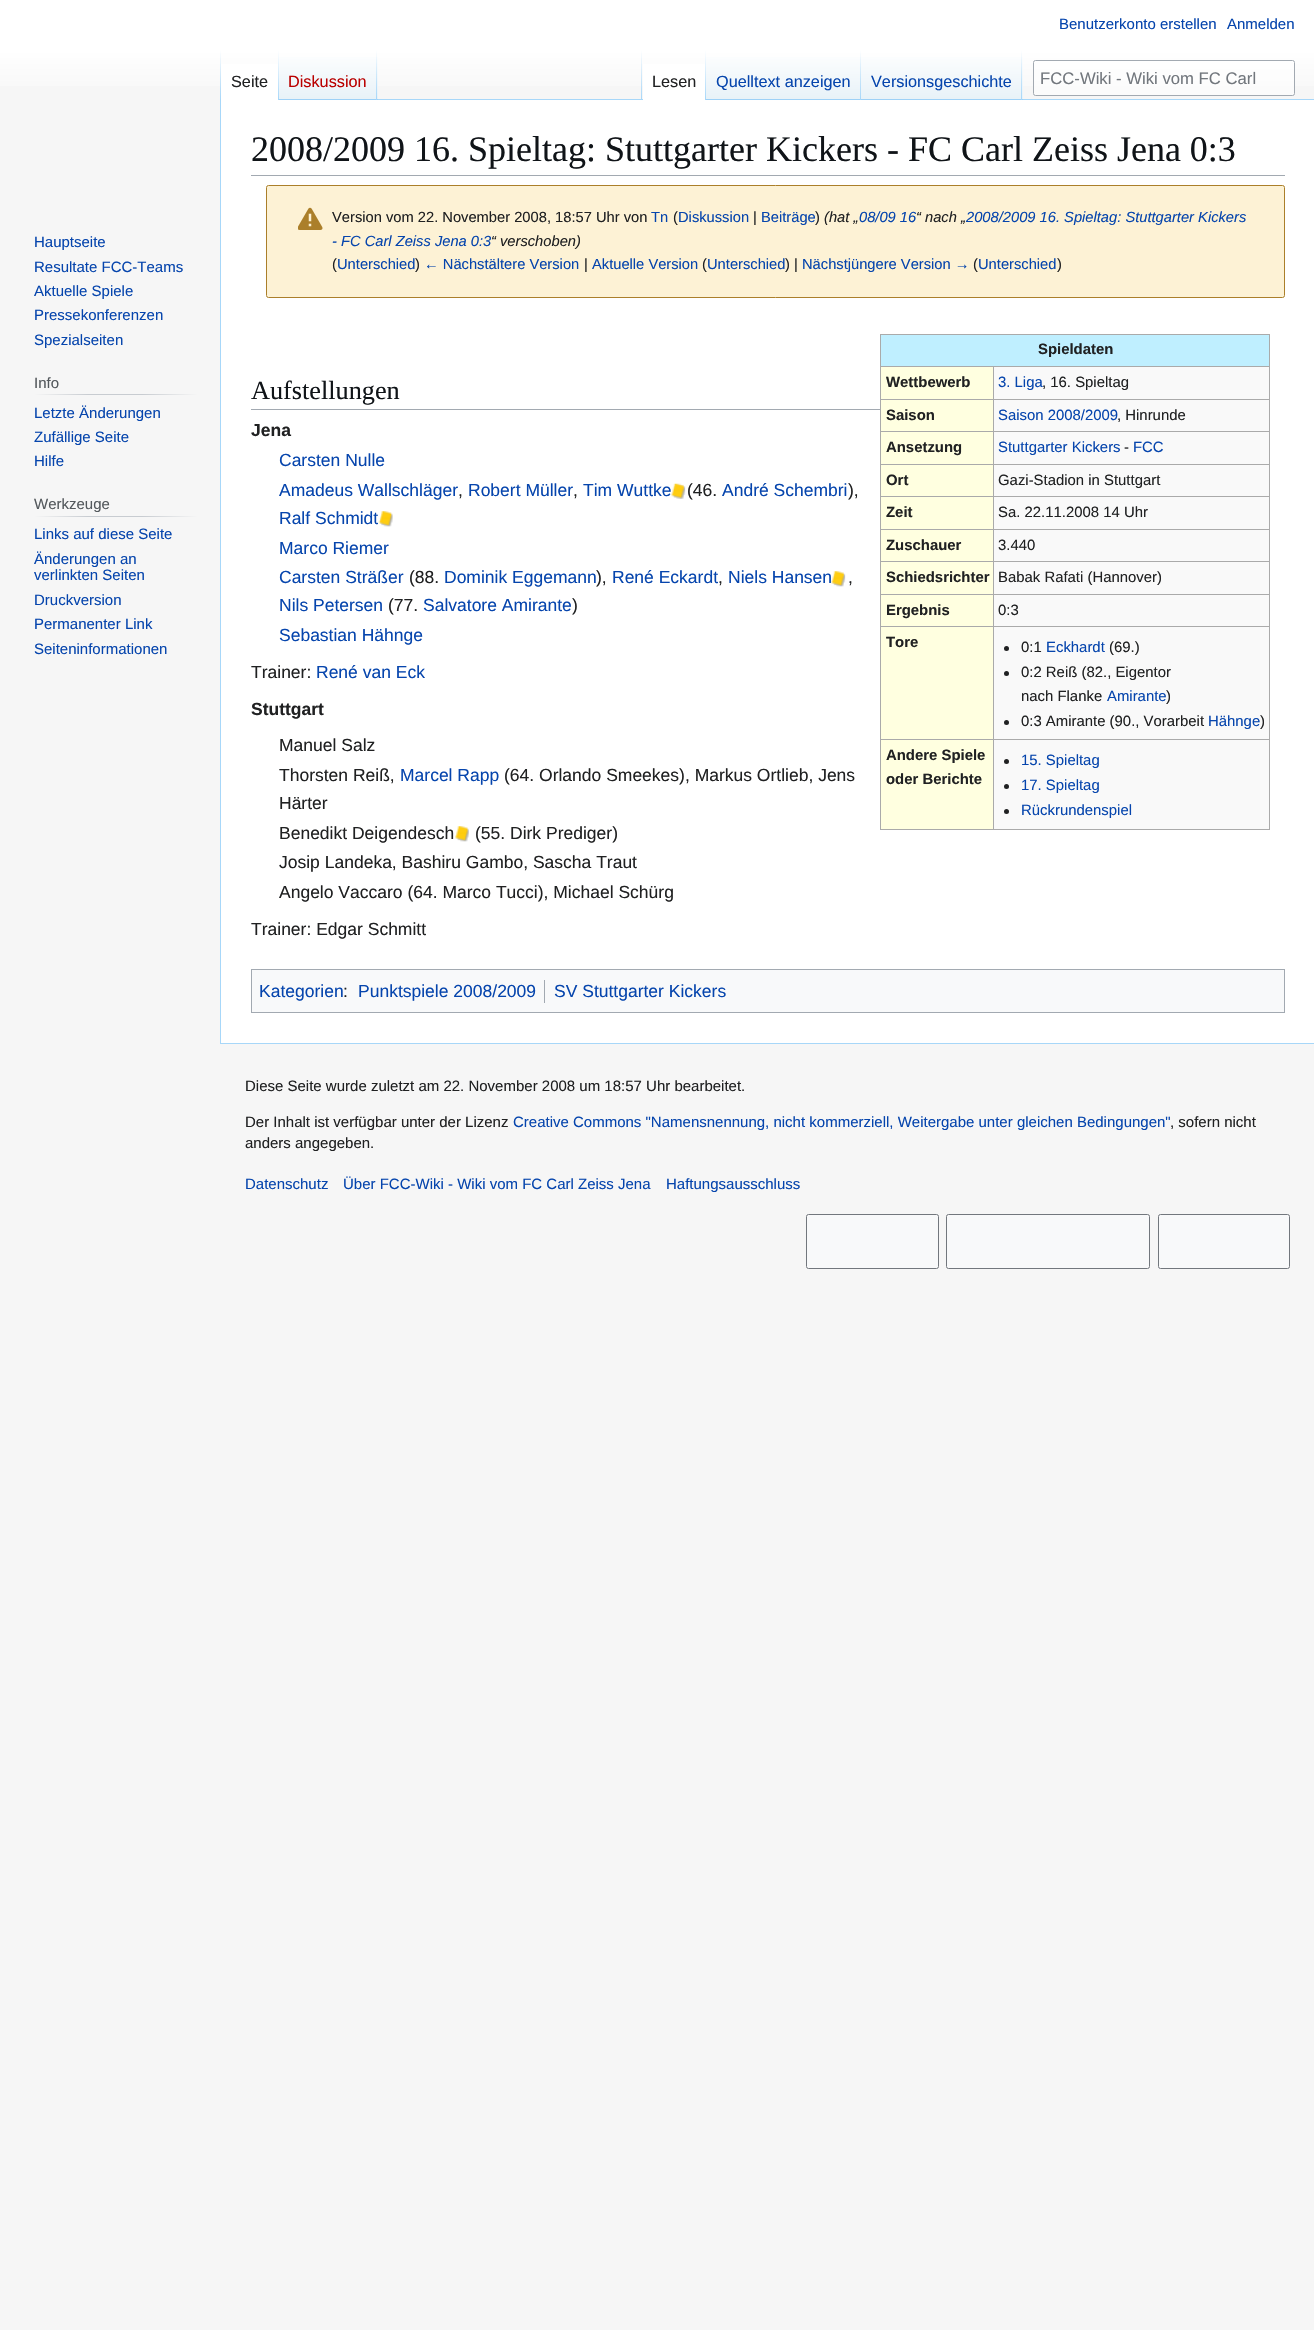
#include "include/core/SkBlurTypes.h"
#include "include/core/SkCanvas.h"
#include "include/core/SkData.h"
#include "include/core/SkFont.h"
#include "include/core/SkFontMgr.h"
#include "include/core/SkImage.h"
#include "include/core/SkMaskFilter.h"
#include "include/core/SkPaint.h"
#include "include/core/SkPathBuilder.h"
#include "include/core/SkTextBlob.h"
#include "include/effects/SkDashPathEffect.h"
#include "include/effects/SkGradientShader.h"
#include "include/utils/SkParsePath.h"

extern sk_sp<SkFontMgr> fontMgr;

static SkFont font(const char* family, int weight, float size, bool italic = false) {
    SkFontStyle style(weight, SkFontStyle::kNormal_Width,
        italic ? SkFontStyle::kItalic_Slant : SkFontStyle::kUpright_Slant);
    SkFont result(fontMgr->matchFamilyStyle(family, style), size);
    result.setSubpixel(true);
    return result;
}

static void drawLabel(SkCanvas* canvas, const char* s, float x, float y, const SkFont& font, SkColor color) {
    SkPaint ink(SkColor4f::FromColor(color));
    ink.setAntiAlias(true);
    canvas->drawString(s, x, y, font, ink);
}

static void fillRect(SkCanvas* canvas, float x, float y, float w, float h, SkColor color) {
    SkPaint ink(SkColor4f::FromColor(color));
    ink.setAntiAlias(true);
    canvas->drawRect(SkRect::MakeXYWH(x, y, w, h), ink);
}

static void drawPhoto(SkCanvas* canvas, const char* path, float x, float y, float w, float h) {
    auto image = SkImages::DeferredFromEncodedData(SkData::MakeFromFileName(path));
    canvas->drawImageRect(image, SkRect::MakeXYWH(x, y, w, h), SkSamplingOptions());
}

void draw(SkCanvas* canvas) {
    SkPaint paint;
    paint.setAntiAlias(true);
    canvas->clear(0xFFF6F6F6);
    {
        const SkColor colors[] = {0xFFFFFFFF, 0xFFF6F6F6};
        const float stops[] = {0.5f, 1};
        const SkPoint ends[] = {{658, 0}, {658, 100}};
        paint.setShader(SkGradientShader::MakeLinear(ends, colors, stops, 2, SkTileMode::kClamp));
        paint.setAlpha(255);
    }
    canvas->drawRect(SkRect::MakeXYWH(0, 0, 1314, 86), paint);
    SkFont font1 = font("Liberation Sans", 400, 15);
    drawLabel(canvas, "Benutzerkonto erstellen", 1059, 29, font1, 0xFF0645AD);
    drawLabel(canvas, "Anmelden", 1227, 29, font1, 0xFF0645AD);
    fillRect(canvas, 220, 1043, 1094, 1, 0xFFA7D7F9);
    fillRect(canvas, 220, 99, 1, 945, 0xFFA7D7F9);
    {
        const SkColor colors[] = {0x00A7D7F9, 0xFFA7D7F9};
        const float stops[] = {0, 1};
        const SkPoint ends[] = {{221, 50}, {221, 100}};
        paint.setShader(SkGradientShader::MakeLinear(ends, colors, stops, 2, SkTileMode::kClamp));
        paint.setAlpha(255);
    }
    canvas->drawRect(SkRect::MakeXYWH(220, 50, 1, 50), paint);
    fillRect(canvas, 221, 64, 57, 36, 0xFFFFFFFF);
    {
        const SkColor colors[] = {0xFFFFFFFF, 0xFFA7D7F9};
        const float stops[] = {0, 1};
        const SkPoint ends[] = {{278, 50}, {278, 100}};
        paint.setShader(SkGradientShader::MakeLinear(ends, colors, stops, 2, SkTileMode::kClamp));
        paint.setAlpha(255);
    }
    canvas->drawRect(SkRect::MakeXYWH(278, 50, 1, 50), paint);
    SkFont font2 = font("Liberation Sans", 400, 16.25f);
    drawLabel(canvas, "Seite", 231, 87, font2, 0xFF202122);
    {
        const SkColor colors[] = {0xFF77C1F6, 0xFFE8F2F8, 0xFFFFFFFF};
        const float stops[] = {0, 0.03f, 1};
        const SkPoint ends[] = {{328, 100}, {328, 50}};
        paint.setShader(SkGradientShader::MakeLinear(ends, colors, stops, 3, SkTileMode::kClamp));
        paint.setAlpha(255);
    }
    canvas->drawRect(SkRect::MakeXYWH(279, 57, 99, 43), paint);
    {
        const SkColor colors[] = {0x00A7D7F9, 0xFFA7D7F9};
        const float stops[] = {0, 1};
        const SkPoint ends[] = {{377, 50}, {377, 100}};
        paint.setShader(SkGradientShader::MakeLinear(ends, colors, stops, 2, SkTileMode::kClamp));
        paint.setAlpha(255);
    }
    canvas->drawRect(SkRect::MakeXYWH(376, 50, 1, 50), paint);
    drawLabel(canvas, "Diskussion", 288, 87, font2, 0xFFBA0000);
    fillRect(canvas, 378, 99, 936, 1, 0xFFA7D7F9);
    {
        const SkColor colors[] = {0x00A7D7F9, 0xFFA7D7F9};
        const float stops[] = {0, 1};
        const SkPoint ends[] = {{642, 50}, {642, 100}};
        paint.setShader(SkGradientShader::MakeLinear(ends, colors, stops, 2, SkTileMode::kClamp));
        paint.setAlpha(255);
    }
    canvas->drawRect(SkRect::MakeXYWH(641, 50, 1, 50), paint);
    fillRect(canvas, 643, 64, 62, 36, 0xFFFFFFFF);
    {
        const SkColor colors[] = {0xFFFFFFFF, 0xFFA7D7F9};
        const float stops[] = {0, 1};
        const SkPoint ends[] = {{706, 50}, {706, 100}};
        paint.setShader(SkGradientShader::MakeLinear(ends, colors, stops, 2, SkTileMode::kClamp));
        paint.setAlpha(255);
    }
    canvas->drawRect(SkRect::MakeXYWH(705, 50, 1, 50), paint);
    drawLabel(canvas, "Lesen", 652, 87, font2, 0xFF202122);
    {
        const SkColor colors[] = {0xFF77C1F6, 0xFFE8F2F8, 0xFFFFFFFF};
        const float stops[] = {0, 0.03f, 1};
        const SkPoint ends[] = {{784, 100}, {784, 50}};
        paint.setShader(SkGradientShader::MakeLinear(ends, colors, stops, 3, SkTileMode::kClamp));
        paint.setAlpha(255);
    }
    canvas->drawRect(SkRect::MakeXYWH(706, 57, 155, 43), paint);
    {
        const SkColor colors[] = {0x00A7D7F9, 0xFFA7D7F9};
        const float stops[] = {0, 1};
        const SkPoint ends[] = {{861, 50}, {861, 100}};
        paint.setShader(SkGradientShader::MakeLinear(ends, colors, stops, 2, SkTileMode::kClamp));
        paint.setAlpha(255);
    }
    canvas->drawRect(SkRect::MakeXYWH(860, 50, 1, 50), paint);
    drawLabel(canvas, "Quelltext anzeigen", 716, 87, font2, 0xFF0645AD);
    {
        const SkColor colors[] = {0xFF77C1F6, 0xFFE8F2F8, 0xFFFFFFFF};
        const float stops[] = {0, 0.03f, 1};
        const SkPoint ends[] = {{942, 100}, {942, 50}};
        paint.setShader(SkGradientShader::MakeLinear(ends, colors, stops, 3, SkTileMode::kClamp));
        paint.setAlpha(255);
    }
    canvas->drawRect(SkRect::MakeXYWH(861, 57, 162, 43), paint);
    {
        const SkColor colors[] = {0x00A7D7F9, 0xFFA7D7F9};
        const float stops[] = {0, 1};
        const SkPoint ends[] = {{1022, 50}, {1022, 100}};
        paint.setShader(SkGradientShader::MakeLinear(ends, colors, stops, 2, SkTileMode::kClamp));
        paint.setAlpha(255);
    }
    canvas->drawRect(SkRect::MakeXYWH(1021, 50, 1, 50), paint);
    drawLabel(canvas, "Versionsgeschichte", 871, 87, font2, 0xFF0645AD);
    paint.setShader(nullptr);
    paint.setColor(0x80FFFFFF);
    canvas->drawRoundRect(SkRect::MakeXYWH(1033.5f, 60.5f, 261, 35), 2, 2, paint);
    paint.setStroke(true);
    paint.setStrokeWidth(1);
    paint.setColor(0xFFA2A9B1);
    canvas->drawRoundRect(SkRect::MakeXYWH(1033.5f, 60.5f, 261, 35), 2, 2, paint);
    SkFont font3 = font("Liberation Sans", 400, 16.7f);
    drawLabel(canvas, "FCC-Wiki - Wiki vom FC Carl", 1040, 84, font3, 0xFF72777D);
    drawLabel(canvas, "Hauptseite", 34, 247, font1, 0xFF0645AD);
    drawLabel(canvas, "Resultate FCC-Teams", 34, 272, font1, 0xFF0645AD);
    drawLabel(canvas, "Aktuelle Spiele", 34, 296, font1, 0xFF0645AD);
    drawLabel(canvas, "Pressekonferenzen", 34, 320, font1, 0xFF0645AD);
    drawLabel(canvas, "Spezialseiten", 34, 345, font1, 0xFF0645AD);
    paint.setStroke(false);
    {
        const SkColor colors[] = {0xFFF6F6F6, 0xFFC8CCD1, 0xFFC8CCD1, 0xFFF6F6F6};
        const float stops[] = {0, 0.33f, 0.66f, 1};
        const SkPoint ends[] = {{34, 394}, {198, 394}};
        paint.setShader(SkGradientShader::MakeLinear(ends, colors, stops, 4, SkTileMode::kClamp));
        paint.setAlpha(255);
    }
    canvas->drawRect(SkRect::MakeXYWH(34, 394, 164, 1), paint);
    drawLabel(canvas, "Info", 34, 388, font1, 0xFF54595D);
    drawLabel(canvas, "Letzte Änderungen", 34, 418, font1, 0xFF0645AD);
    drawLabel(canvas, "Zufällige Seite", 34, 442, font1, 0xFF0645AD);
    drawLabel(canvas, "Hilfe", 34, 466, font1, 0xFF0645AD);
    {
        const SkColor colors[] = {0xFFF6F6F6, 0xFFC8CCD1, 0xFFC8CCD1, 0xFFF6F6F6};
        const float stops[] = {0, 0.33f, 0.66f, 1};
        const SkPoint ends[] = {{34, 517}, {198, 517}};
        paint.setShader(SkGradientShader::MakeLinear(ends, colors, stops, 4, SkTileMode::kClamp));
        paint.setAlpha(255);
    }
    canvas->drawRect(SkRect::MakeXYWH(34, 516, 164, 1), paint);
    drawLabel(canvas, "Werkzeuge", 34, 509, font1, 0xFF54595D);
    drawLabel(canvas, "Links auf diese Seite", 34, 539, font1, 0xFF0645AD);
    drawLabel(canvas, "Änderungen an", 34, 564, font1, 0xFF0645AD);
    drawLabel(canvas, "verlinkten Seiten", 34, 580, font1, 0xFF0645AD);
    drawLabel(canvas, "Druckversion", 34, 605, font1, 0xFF0645AD);
    drawLabel(canvas, "Permanenter Link", 34, 629, font1, 0xFF0645AD);
    drawLabel(canvas, "Seiteninformationen", 34, 654, font1, 0xFF0645AD);
    fillRect(canvas, 221, 100, 1093, 943, 0xFFFFFFFF);
    fillRect(canvas, 251, 175, 1034, 1, 0xFFA2A9B1);
    SkFont font4 = font("Liberation Serif", 400, 36);
    drawLabel(canvas, "2008/2009 16. Spieltag: Stuttgarter Kickers - FC Carl Zeiss Jena 0:3", 251, 161, font4, 0xFF101418);
    paint.setShader(nullptr);
    paint.setColor(0xFFFDF2D5);
    canvas->drawRoundRect(SkRect::MakeXYWH(266.5f, 185.5f, 1018, 112), 2, 2, paint);
    paint.setStroke(true);
    paint.setColor(0xFFAB7F2A);
    canvas->drawRoundRect(SkRect::MakeXYWH(266.5f, 185.5f, 1018, 112), 2, 2, paint);
    drawPhoto(canvas, "assets/img1.png", 298, 207, 25, 23);
    SkFont font5 = font("Liberation Sans", 400, 14.7f);
    drawLabel(canvas, "Version vom 22. November 2008, 18:57 Uhr von", 332, 222, font5, 0xFF202122);
    drawLabel(canvas, "Tn", 651, 222, font5, 0xFF0645AD);
    drawLabel(canvas, "(", 673, 222, font5, 0xFF202122);
    drawLabel(canvas, "Diskussion", 678, 222, font5, 0xFF0645AD);
    drawLabel(canvas, "|", 753, 222, font5, 0xFF202122);
    drawLabel(canvas, "Beiträge", 761, 222, font5, 0xFF0645AD);
    drawLabel(canvas, ")", 815, 222, font5, 0xFF202122);
    SkFont font6 = font("Liberation Sans", 400, 14.7f, true);
    drawLabel(canvas, "(hat „", 824, 222, font6, 0xFF202122);
    drawLabel(canvas, "08/09 16", 859, 222, font6, 0xFF0645AD);
    drawLabel(canvas, "“ nach „", 916, 222, font6, 0xFF202122);
    drawLabel(canvas, "2008/2009 16. Spieltag: Stuttgarter Kickers", 966, 222, font6, 0xFF0645AD);
    drawLabel(canvas, "- FC Carl Zeiss Jena 0:3", 332, 246, font6, 0xFF0645AD);
    drawLabel(canvas, "“ verschoben)", 491, 246, font6, 0xFF202122);
    drawLabel(canvas, "(", 332, 269, font5, 0xFF202122);
    drawLabel(canvas, "Unterschied", 337, 269, font5, 0xFF0645AD);
    drawLabel(canvas, ")", 415, 269, font5, 0xFF202122);
    drawLabel(canvas, "← Nächstältere Version", 424, 269, font5, 0xFF0645AD);
    drawLabel(canvas, "|", 584, 269, font5, 0xFF202122);
    drawLabel(canvas, "Aktuelle Version", 592, 269, font5, 0xFF0645AD);
    drawLabel(canvas, "(", 702, 269, font5, 0xFF202122);
    drawLabel(canvas, "Unterschied", 707, 269, font5, 0xFF0645AD);
    drawLabel(canvas, ") |", 785, 269, font5, 0xFF202122);
    drawLabel(canvas, "Nächstjüngere Version →", 802, 269, font5, 0xFF0645AD);
    drawLabel(canvas, "(", 973, 269, font5, 0xFF202122);
    drawLabel(canvas, "Unterschied", 978, 269, font5, 0xFF0645AD);
    drawLabel(canvas, ")", 1057, 269, font5, 0xFF202122);
    fillRect(canvas, 251, 409, 629, 1, 0xFFA2A9B1);
    SkFont font7 = font("Liberation Serif", 400, 26.25f);
    drawLabel(canvas, "Aufstellungen", 251, 399, font7, 0xFF101418);
    fillRect(canvas, 994, 367, 275, 462, 0xFFF9F9F9);
    fillRect(canvas, 880, 334, 390, 1, 0xFFAAAAAA);
    fillRect(canvas, 1269, 334, 1, 496, 0xFFAAAAAA);
    fillRect(canvas, 880, 829, 390, 1, 0xFFAAAAAA);
    fillRect(canvas, 880, 334, 1, 496, 0xFFAAAAAA);
    fillRect(canvas, 881, 335, 388, 31, 0xFFBFEFFF);
    SkFont font8 = font("Liberation Sans", 700, 14.9f);
    drawLabel(canvas, "Spieldaten", 1038, 354, font8, 0xFF202122);
    fillRect(canvas, 881, 367, 112, 32, 0xFFFFFFE0);
    fillRect(canvas, 993, 366, 277, 1, 0xFFAAAAAA);
    fillRect(canvas, 993, 399, 277, 1, 0xFFAAAAAA);
    fillRect(canvas, 993, 431, 277, 1, 0xFFAAAAAA);
    fillRect(canvas, 993, 464, 277, 1, 0xFFAAAAAA);
    fillRect(canvas, 993, 496, 277, 1, 0xFFAAAAAA);
    fillRect(canvas, 993, 529, 277, 1, 0xFFAAAAAA);
    fillRect(canvas, 993, 561, 277, 1, 0xFFAAAAAA);
    fillRect(canvas, 993, 594, 277, 1, 0xFFAAAAAA);
    fillRect(canvas, 993, 626, 277, 1, 0xFFAAAAAA);
    fillRect(canvas, 993, 739, 277, 1, 0xFFAAAAAA);
    fillRect(canvas, 993, 739, 1, 91, 0xFFAAAAAA);
    fillRect(canvas, 880, 739, 114, 1, 0xFFAAAAAA);
    fillRect(canvas, 993, 626, 1, 114, 0xFFAAAAAA);
    fillRect(canvas, 880, 626, 114, 1, 0xFFAAAAAA);
    fillRect(canvas, 993, 594, 1, 34, 0xFFAAAAAA);
    fillRect(canvas, 880, 594, 114, 1, 0xFFAAAAAA);
    fillRect(canvas, 993, 561, 1, 34, 0xFFAAAAAA);
    fillRect(canvas, 880, 561, 114, 1, 0xFFAAAAAA);
    fillRect(canvas, 993, 529, 1, 34, 0xFFAAAAAA);
    fillRect(canvas, 880, 529, 114, 1, 0xFFAAAAAA);
    fillRect(canvas, 993, 496, 1, 34, 0xFFAAAAAA);
    fillRect(canvas, 880, 496, 114, 1, 0xFFAAAAAA);
    fillRect(canvas, 993, 464, 1, 34, 0xFFAAAAAA);
    fillRect(canvas, 880, 464, 114, 1, 0xFFAAAAAA);
    fillRect(canvas, 993, 431, 1, 34, 0xFFAAAAAA);
    fillRect(canvas, 880, 431, 114, 1, 0xFFAAAAAA);
    fillRect(canvas, 993, 399, 1, 34, 0xFFAAAAAA);
    fillRect(canvas, 880, 399, 114, 1, 0xFFAAAAAA);
    fillRect(canvas, 993, 366, 1, 34, 0xFFAAAAAA);
    fillRect(canvas, 880, 366, 114, 1, 0xFFAAAAAA);
    drawLabel(canvas, "Wettbewerb", 886, 387, font8, 0xFF202122);
    SkFont font9 = font("Liberation Sans", 400, 14.9f);
    drawLabel(canvas, "3. Liga", 998, 387, font9, 0xFF0645AD);
    drawLabel(canvas, ", 16. Spieltag", 1042, 387, font9, 0xFF202122);
    fillRect(canvas, 881, 400, 112, 31, 0xFFFFFFE0);
    drawLabel(canvas, "Saison", 886, 420, font8, 0xFF202122);
    drawLabel(canvas, "Saison 2008/2009", 998, 420, font9, 0xFF0645AD);
    drawLabel(canvas, ", Hinrunde", 1117, 420, font9, 0xFF202122);
    fillRect(canvas, 881, 432, 112, 32, 0xFFFFFFE0);
    drawLabel(canvas, "Ansetzung", 886, 452, font8, 0xFF202122);
    drawLabel(canvas, "Stuttgarter Kickers", 998, 452, font9, 0xFF0645AD);
    drawLabel(canvas, "-", 1124, 452, font9, 0xFF202122);
    drawLabel(canvas, "FCC", 1133, 452, font9, 0xFF0645AD);
    fillRect(canvas, 881, 465, 112, 31, 0xFFFFFFE0);
    drawLabel(canvas, "Ort", 886, 485, font8, 0xFF202122);
    drawLabel(canvas, "Gazi-Stadion in Stuttgart", 998, 485, font9, 0xFF202122);
    fillRect(canvas, 881, 497, 112, 32, 0xFFFFFFE0);
    drawLabel(canvas, "Zeit", 886, 517, font8, 0xFF202122);
    drawLabel(canvas, "Sa. 22.11.2008 14 Uhr", 998, 517, font9, 0xFF202122);
    fillRect(canvas, 881, 530, 112, 31, 0xFFFFFFE0);
    drawLabel(canvas, "Zuschauer", 886, 550, font8, 0xFF202122);
    drawLabel(canvas, "3.440", 998, 550, font9, 0xFF202122);
    fillRect(canvas, 881, 562, 112, 32, 0xFFFFFFE0);
    drawLabel(canvas, "Schiedsrichter", 886, 582, font8, 0xFF202122);
    drawLabel(canvas, "Babak Rafati (Hannover)", 998, 582, font9, 0xFF202122);
    fillRect(canvas, 881, 595, 112, 31, 0xFFFFFFE0);
    drawLabel(canvas, "Ergebnis", 886, 615, font8, 0xFF202122);
    drawLabel(canvas, "0:3", 998, 615, font9, 0xFF202122);
    fillRect(canvas, 881, 627, 112, 112, 0xFFFFFFE0);
    drawLabel(canvas, "Tore", 886, 647, font8, 0xFF202122);
    paint.setStroke(false);
    paint.setColor(0xFF202122);
    canvas->drawCircle(1006.5f, 648.5f, 2.5f, paint);
    drawLabel(canvas, "0:1", 1021, 652, font9, 0xFF202122);
    drawLabel(canvas, "Eckhardt", 1046, 652, font9, 0xFF0645AD);
    drawLabel(canvas, "(69.)", 1109, 652, font9, 0xFF202122);
    canvas->drawCircle(1006.5f, 673.5f, 2.5f, paint);
    drawLabel(canvas, "0:2 Reiß (82., Eigentor", 1021, 677, font9, 0xFF202122);
    drawLabel(canvas, "nach Flanke", 1021, 701, font9, 0xFF202122);
    drawLabel(canvas, "Amirante", 1107, 701, font9, 0xFF0645AD);
    drawLabel(canvas, ")", 1166, 701, font9, 0xFF202122);
    canvas->drawCircle(1006.5f, 722.5f, 2.5f, paint);
    drawLabel(canvas, "0:3 Amirante (90., Vorarbeit", 1021, 726, font9, 0xFF202122);
    drawLabel(canvas, "Hähnge", 1208, 726, font9, 0xFF0645AD);
    drawLabel(canvas, ")", 1260, 726, font9, 0xFF202122);
    fillRect(canvas, 881, 740, 112, 89, 0xFFFFFFE0);
    drawLabel(canvas, "Andere Spiele", 886, 760, font8, 0xFF202122);
    drawLabel(canvas, "oder Berichte", 886, 784, font8, 0xFF202122);
    canvas->drawCircle(1006.5f, 761.5f, 2.5f, paint);
    drawLabel(canvas, "15. Spieltag", 1021, 765, font9, 0xFF0645AD);
    canvas->drawCircle(1006.5f, 786.5f, 2.5f, paint);
    drawLabel(canvas, "17. Spieltag", 1021, 790, font9, 0xFF0645AD);
    canvas->drawCircle(1006.5f, 811.5f, 2.5f, paint);
    drawLabel(canvas, "Rückrundenspiel", 1021, 815, font9, 0xFF0645AD);
    SkFont font10 = font("Liberation Sans", 700, 17.5f);
    drawLabel(canvas, "Jena", 251, 436, font10, 0xFF202122);
    SkFont font11 = font("Liberation Sans", 400, 17.5f);
    drawLabel(canvas, "Carsten Nulle", 279, 466, font11, 0xFF0645AD);
    drawLabel(canvas, "Amadeus Wallschläger", 279, 496, font11, 0xFF0645AD);
    drawLabel(canvas, ",", 458, 496, font11, 0xFF202122);
    drawLabel(canvas, "Robert Müller", 468, 496, font11, 0xFF0645AD);
    drawLabel(canvas, ",", 573, 496, font11, 0xFF202122);
    drawLabel(canvas, "Tim Wuttke", 583, 496, font11, 0xFF0645AD);
    drawPhoto(canvas, "assets/img2.png", 671, 483, 15, 16);
    drawLabel(canvas, "(46.", 687, 496, font11, 0xFF202122);
    drawLabel(canvas, "André Schembri", 722, 496, font11, 0xFF0645AD);
    drawLabel(canvas, "),", 848, 496, font11, 0xFF202122);
    drawLabel(canvas, "Ralf Schmidt", 279, 524, font11, 0xFF0645AD);
    drawPhoto(canvas, "assets/img3.png", 378, 511, 15, 16);
    drawLabel(canvas, "Marco Riemer", 279, 554, font11, 0xFF0645AD);
    drawLabel(canvas, "Carsten Sträßer", 279, 583, font11, 0xFF0645AD);
    drawLabel(canvas, "(88.", 409, 583, font11, 0xFF202122);
    drawLabel(canvas, "Dominik Eggemann", 444, 583, font11, 0xFF0645AD);
    drawLabel(canvas, "),", 596, 583, font11, 0xFF202122);
    drawLabel(canvas, "René Eckardt", 612, 583, font11, 0xFF0645AD);
    drawLabel(canvas, ",", 718, 583, font11, 0xFF202122);
    drawLabel(canvas, "Niels Hansen", 728, 583, font11, 0xFF0645AD);
    drawPhoto(canvas, "assets/img4.png", 831, 571, 15, 16);
    drawLabel(canvas, ",", 848, 583, font11, 0xFF202122);
    drawLabel(canvas, "Nils Petersen", 279, 611, font11, 0xFF0645AD);
    drawLabel(canvas, "(77.", 388, 611, font11, 0xFF202122);
    drawLabel(canvas, "Salvatore Amirante", 423, 611, font11, 0xFF0645AD);
    drawLabel(canvas, ")", 572, 611, font11, 0xFF202122);
    drawLabel(canvas, "Sebastian Hähnge", 279, 641, font11, 0xFF0645AD);
    drawLabel(canvas, "Trainer:", 251, 678, font11, 0xFF202122);
    drawLabel(canvas, "René van Eck", 316, 678, font11, 0xFF0645AD);
    drawLabel(canvas, "Stuttgart", 251, 715, font10, 0xFF202122);
    drawLabel(canvas, "Manuel Salz", 279, 751, font11, 0xFF202122);
    drawLabel(canvas, "Thorsten Reiß,", 279, 781, font11, 0xFF202122);
    drawLabel(canvas, "Marcel Rapp", 400, 781, font11, 0xFF0645AD);
    drawLabel(canvas, "(64. Orlando Smeekes), Markus Ortlieb, Jens", 504, 781, font11, 0xFF202122);
    drawLabel(canvas, "Härter", 279, 809, font11, 0xFF202122);
    drawLabel(canvas, "Benedikt Deigendesch", 279, 839, font11, 0xFF202122);
    drawPhoto(canvas, "assets/img5.png", 455, 826, 14, 16);
    drawLabel(canvas, "(55. Dirk Prediger)", 475, 839, font11, 0xFF202122);
    drawLabel(canvas, "Josip Landeka, Bashiru Gambo, Sascha Traut", 279, 868, font11, 0xFF202122);
    drawLabel(canvas, "Angelo Vaccaro (64. Marco Tucci), Michael Schürg", 279, 898, font11, 0xFF202122);
    drawLabel(canvas, "Trainer: Edgar Schmitt", 251, 935, font11, 0xFF202122);
    paint.setColor(0xFFF8F9FA);
    canvas->drawRect(SkRect::MakeXYWH(251.5f, 969.5f, 1033, 43), paint);
    paint.setStroke(true);
    paint.setColor(0xFFA2A9B1);
    canvas->drawRect(SkRect::MakeXYWH(251.5f, 969.5f, 1033, 43), paint);
    drawLabel(canvas, "Kategorien", 259, 997, font11, 0xFF0645AD);
    drawLabel(canvas, ":", 343, 997, font11, 0xFF202122);
    drawLabel(canvas, "Punktspiele 2008/2009", 358, 997, font11, 0xFF0645AD);
    fillRect(canvas, 544, 980, 1, 23, 0xFFA2A9B1);
    drawLabel(canvas, "SV Stuttgarter Kickers", 554, 997, font11, 0xFF0645AD);
    drawLabel(canvas, "Diese Seite wurde zuletzt am 22. November 2008 um 18:57 Uhr bearbeitet.", 245, 1091, font1, 0xFF202122);
    drawLabel(canvas, "Der Inhalt ist verfügbar unter der Lizenz", 245, 1127, font1, 0xFF202122);
    drawLabel(canvas, "Creative Commons \"Namensnennung, nicht kommerziell, Weitergabe unter gleichen Bedingungen\"", 513, 1127, font1, 0xFF0645AD);
    drawLabel(canvas, ", sofern nicht", 1170, 1127, font1, 0xFF202122);
    drawLabel(canvas, "anders angegeben.", 245, 1148, font1, 0xFF202122);
    drawLabel(canvas, "Datenschutz", 245, 1189, font1, 0xFF0645AD);
    drawLabel(canvas, "Über FCC-Wiki - Wiki vom FC Carl Zeiss Jena", 343, 1189, font1, 0xFF0645AD);
    drawLabel(canvas, "Haftungsausschluss", 666, 1189, font1, 0xFF0645AD);
    paint.setStroke(false);
    paint.setColor(0xFFF8F9FA);
    canvas->drawRoundRect(SkRect::MakeXYWH(806.5f, 1214.5f, 132, 54), 2, 2, paint);
    paint.setStroke(true);
    paint.setColor(0xFF72777D);
    canvas->drawRoundRect(SkRect::MakeXYWH(806.5f, 1214.5f, 132, 54), 2, 2, paint);
    paint.setStroke(false);
    paint.setColor(0xFFF8F9FA);
    canvas->drawRoundRect(SkRect::MakeXYWH(946.5f, 1214.5f, 203, 54), 2, 2, paint);
    paint.setStroke(true);
    paint.setColor(0xFF72777D);
    canvas->drawRoundRect(SkRect::MakeXYWH(946.5f, 1214.5f, 203, 54), 2, 2, paint);
    paint.setStroke(false);
    paint.setColor(0xFFF8F9FA);
    canvas->drawRoundRect(SkRect::MakeXYWH(1158.5f, 1214.5f, 131, 54), 2, 2, paint);
    paint.setStroke(true);
    paint.setColor(0xFF72777D);
    canvas->drawRoundRect(SkRect::MakeXYWH(1158.5f, 1214.5f, 131, 54), 2, 2, paint);
}
